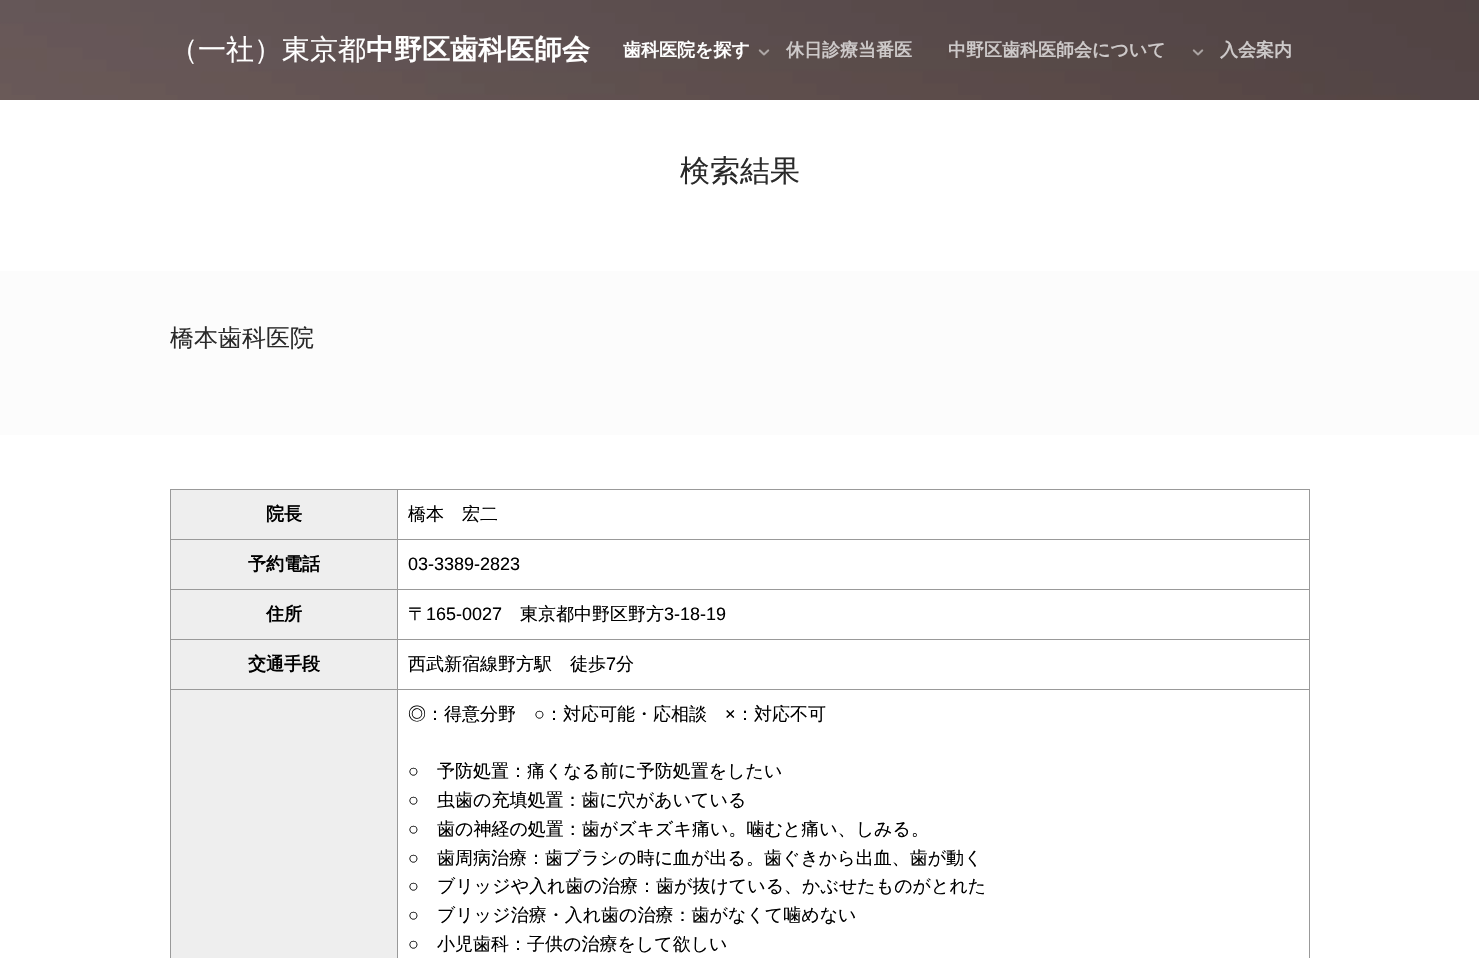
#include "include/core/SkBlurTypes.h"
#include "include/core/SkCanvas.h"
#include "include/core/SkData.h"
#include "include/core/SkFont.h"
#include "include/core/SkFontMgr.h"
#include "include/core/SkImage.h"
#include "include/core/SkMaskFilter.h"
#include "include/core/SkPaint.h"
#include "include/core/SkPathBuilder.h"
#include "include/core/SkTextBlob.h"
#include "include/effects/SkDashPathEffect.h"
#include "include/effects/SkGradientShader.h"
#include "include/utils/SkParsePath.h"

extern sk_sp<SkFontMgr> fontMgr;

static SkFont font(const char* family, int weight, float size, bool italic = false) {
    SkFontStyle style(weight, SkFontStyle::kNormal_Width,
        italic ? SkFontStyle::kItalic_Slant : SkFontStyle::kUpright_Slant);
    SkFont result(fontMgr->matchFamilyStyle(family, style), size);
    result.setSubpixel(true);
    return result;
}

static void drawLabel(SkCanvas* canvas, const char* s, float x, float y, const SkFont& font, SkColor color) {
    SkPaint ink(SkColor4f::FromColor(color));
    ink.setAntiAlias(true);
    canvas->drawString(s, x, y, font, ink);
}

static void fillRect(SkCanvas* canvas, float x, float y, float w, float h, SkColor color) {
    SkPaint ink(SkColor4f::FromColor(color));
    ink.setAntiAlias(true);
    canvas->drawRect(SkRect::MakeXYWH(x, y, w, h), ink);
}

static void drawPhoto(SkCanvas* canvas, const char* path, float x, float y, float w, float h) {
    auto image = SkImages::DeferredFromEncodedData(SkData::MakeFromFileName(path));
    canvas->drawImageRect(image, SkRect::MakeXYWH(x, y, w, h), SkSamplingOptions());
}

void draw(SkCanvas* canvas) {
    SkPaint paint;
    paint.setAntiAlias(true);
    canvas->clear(0xFFFFFFFF);
    drawPhoto(canvas, "assets/img1.png", 0, 0, 1479, 100);
    SkFont font1 = font("WenQuanYi Zen Hei", 500, 28);
    drawLabel(canvas, "（一社）東京都", 170, 59, font1, 0xFFFFFFFF);
    SkFont font2 = font("WenQuanYi Zen Hei", 700, 28);
    drawLabel(canvas, "中野区歯科医師会", 366, 59, font2, 0xFFFFFFFF);
    SkFont font3 = font("WenQuanYi Zen Hei", 700, 18);
    drawLabel(canvas, "歯科医院を探す", 623, 56, font3, 0xFFFFFFFF);
    drawPhoto(canvas, "assets/img2.png", 758, 49, 12, 7);
    drawLabel(canvas, "休日診療当番医", 786, 56, font3, 0xFFCDC9C9);
    drawLabel(canvas, "中野区歯科医師会について", 948, 56, font3, 0xFFCDC9C9);
    drawPhoto(canvas, "assets/img3.png", 1192, 49, 12, 7);
    drawLabel(canvas, "入会案内", 1220, 56, font3, 0xFFCDC9C9);
    SkFont font4 = font("WenQuanYi Zen Hei", 500, 30);
    drawLabel(canvas, "検索結果", 680, 181, font4, 0xFF2A2A2A);
    fillRect(canvas, 0, 271, 1479, 164, 0xFFFCFCFC);
    SkFont font5 = font("WenQuanYi Zen Hei", 500, 24);
    drawLabel(canvas, "橋本歯科医院", 170, 346, font5, 0xFF2A2A2A);
    fillRect(canvas, 171, 490, 226, 49, 0xFFEEEEEE);
    fillRect(canvas, 397, 489, 913, 1, 0xFF999999);
    fillRect(canvas, 397, 539, 913, 1, 0xFF999999);
    fillRect(canvas, 397, 589, 913, 1, 0xFF999999);
    fillRect(canvas, 397, 639, 913, 1, 0xFF999999);
    fillRect(canvas, 397, 689, 913, 1, 0xFF999999);
    fillRect(canvas, 397, 689, 1, 269, 0xFF999999);
    fillRect(canvas, 170, 689, 228, 1, 0xFF999999);
    fillRect(canvas, 397, 639, 1, 51, 0xFF999999);
    fillRect(canvas, 170, 639, 228, 1, 0xFF999999);
    fillRect(canvas, 397, 589, 1, 51, 0xFF999999);
    fillRect(canvas, 170, 589, 228, 1, 0xFF999999);
    fillRect(canvas, 397, 539, 1, 51, 0xFF999999);
    fillRect(canvas, 170, 539, 228, 1, 0xFF999999);
    fillRect(canvas, 397, 489, 1, 51, 0xFF999999);
    fillRect(canvas, 170, 489, 228, 1, 0xFF999999);
    fillRect(canvas, 170, 689, 1, 269, 0xFF999999);
    fillRect(canvas, 170, 639, 1, 51, 0xFF999999);
    fillRect(canvas, 170, 589, 1, 51, 0xFF999999);
    fillRect(canvas, 170, 539, 1, 51, 0xFF999999);
    fillRect(canvas, 170, 489, 1, 51, 0xFF999999);
    drawLabel(canvas, "院長", 266, 520, font3, 0xFF000000);
    fillRect(canvas, 1309, 689, 1, 269, 0xFF999999);
    fillRect(canvas, 1309, 639, 1, 51, 0xFF999999);
    fillRect(canvas, 1309, 589, 1, 51, 0xFF999999);
    fillRect(canvas, 1309, 539, 1, 51, 0xFF999999);
    fillRect(canvas, 1309, 489, 1, 51, 0xFF999999);
    SkFont font6 = font("WenQuanYi Zen Hei", 500, 18);
    drawLabel(canvas, "橋本　宏二", 408, 520, font6, 0xFF000000);
    fillRect(canvas, 171, 540, 226, 49, 0xFFEEEEEE);
    drawLabel(canvas, "予約電話", 248, 570, font3, 0xFF000000);
    SkFont font7 = font("Liberation Sans", 400, 18);
    drawLabel(canvas, "03-3389-2823", 408, 570, font7, 0xFF000000);
    fillRect(canvas, 171, 590, 226, 49, 0xFFEEEEEE);
    drawLabel(canvas, "住所", 266, 620, font3, 0xFF000000);
    drawLabel(canvas, "〒", 408, 620, font6, 0xFF000000);
    drawLabel(canvas, "165-0027", 426, 620, font7, 0xFF000000);
    drawLabel(canvas, "東京都中野区野方", 520, 620, font6, 0xFF000000);
    drawLabel(canvas, "3-18-19", 664, 620, font7, 0xFF000000);
    fillRect(canvas, 171, 640, 226, 49, 0xFFEEEEEE);
    drawLabel(canvas, "交通手段", 248, 670, font3, 0xFF000000);
    drawLabel(canvas, "西武新宿線野方駅　徒歩", 408, 670, font6, 0xFF000000);
    drawLabel(canvas, "7", 606, 670, font7, 0xFF000000);
    drawLabel(canvas, "分", 616, 670, font6, 0xFF000000);
    fillRect(canvas, 171, 690, 226, 268, 0xFFEEEEEE);
    drawLabel(canvas, "◎：得意分野", 408, 720, font6, 0xFF000000);
    drawLabel(canvas, "○", 534, 720, font7, 0xFF000000);
    drawLabel(canvas, "：対応可能・応相談", 545, 720, font6, 0xFF000000);
    drawLabel(canvas, "×", 725, 720, font7, 0xFF000000);
    drawLabel(canvas, "：対応不可", 736, 720, font6, 0xFF000000);
    drawLabel(canvas, "○", 408, 777, font7, 0xFF000000);
    drawLabel(canvas, "予防処置：痛くなる前に予防処置をしたい", 437, 777, font6, 0xFF000000);
    drawLabel(canvas, "○", 408, 806, font7, 0xFF000000);
    drawLabel(canvas, "虫歯の充填処置：歯に穴があいている", 437, 806, font6, 0xFF000000);
    drawLabel(canvas, "○", 408, 835, font7, 0xFF000000);
    drawLabel(canvas, "歯の神経の処置：歯がズキズキ痛い。噛むと痛い、しみる。", 437, 835, font6, 0xFF000000);
    drawLabel(canvas, "○", 408, 864, font7, 0xFF000000);
    drawLabel(canvas, "歯周病治療：歯ブラシの時に血が出る。歯ぐきから出血、歯が動く", 437, 864, font6, 0xFF000000);
    drawLabel(canvas, "○", 408, 892, font7, 0xFF000000);
    drawLabel(canvas, "ブリッジや入れ歯の治療：歯が抜けている、かぶせたものがとれた", 437, 892, font6, 0xFF000000);
    drawLabel(canvas, "○", 408, 921, font7, 0xFF000000);
    drawLabel(canvas, "ブリッジ治療・入れ歯の治療：歯がなくて噛めない", 437, 921, font6, 0xFF000000);
    drawLabel(canvas, "○", 408, 950, font7, 0xFF000000);
    drawLabel(canvas, "小児歯科：子供の治療をして欲しい", 437, 950, font6, 0xFF000000);
}
